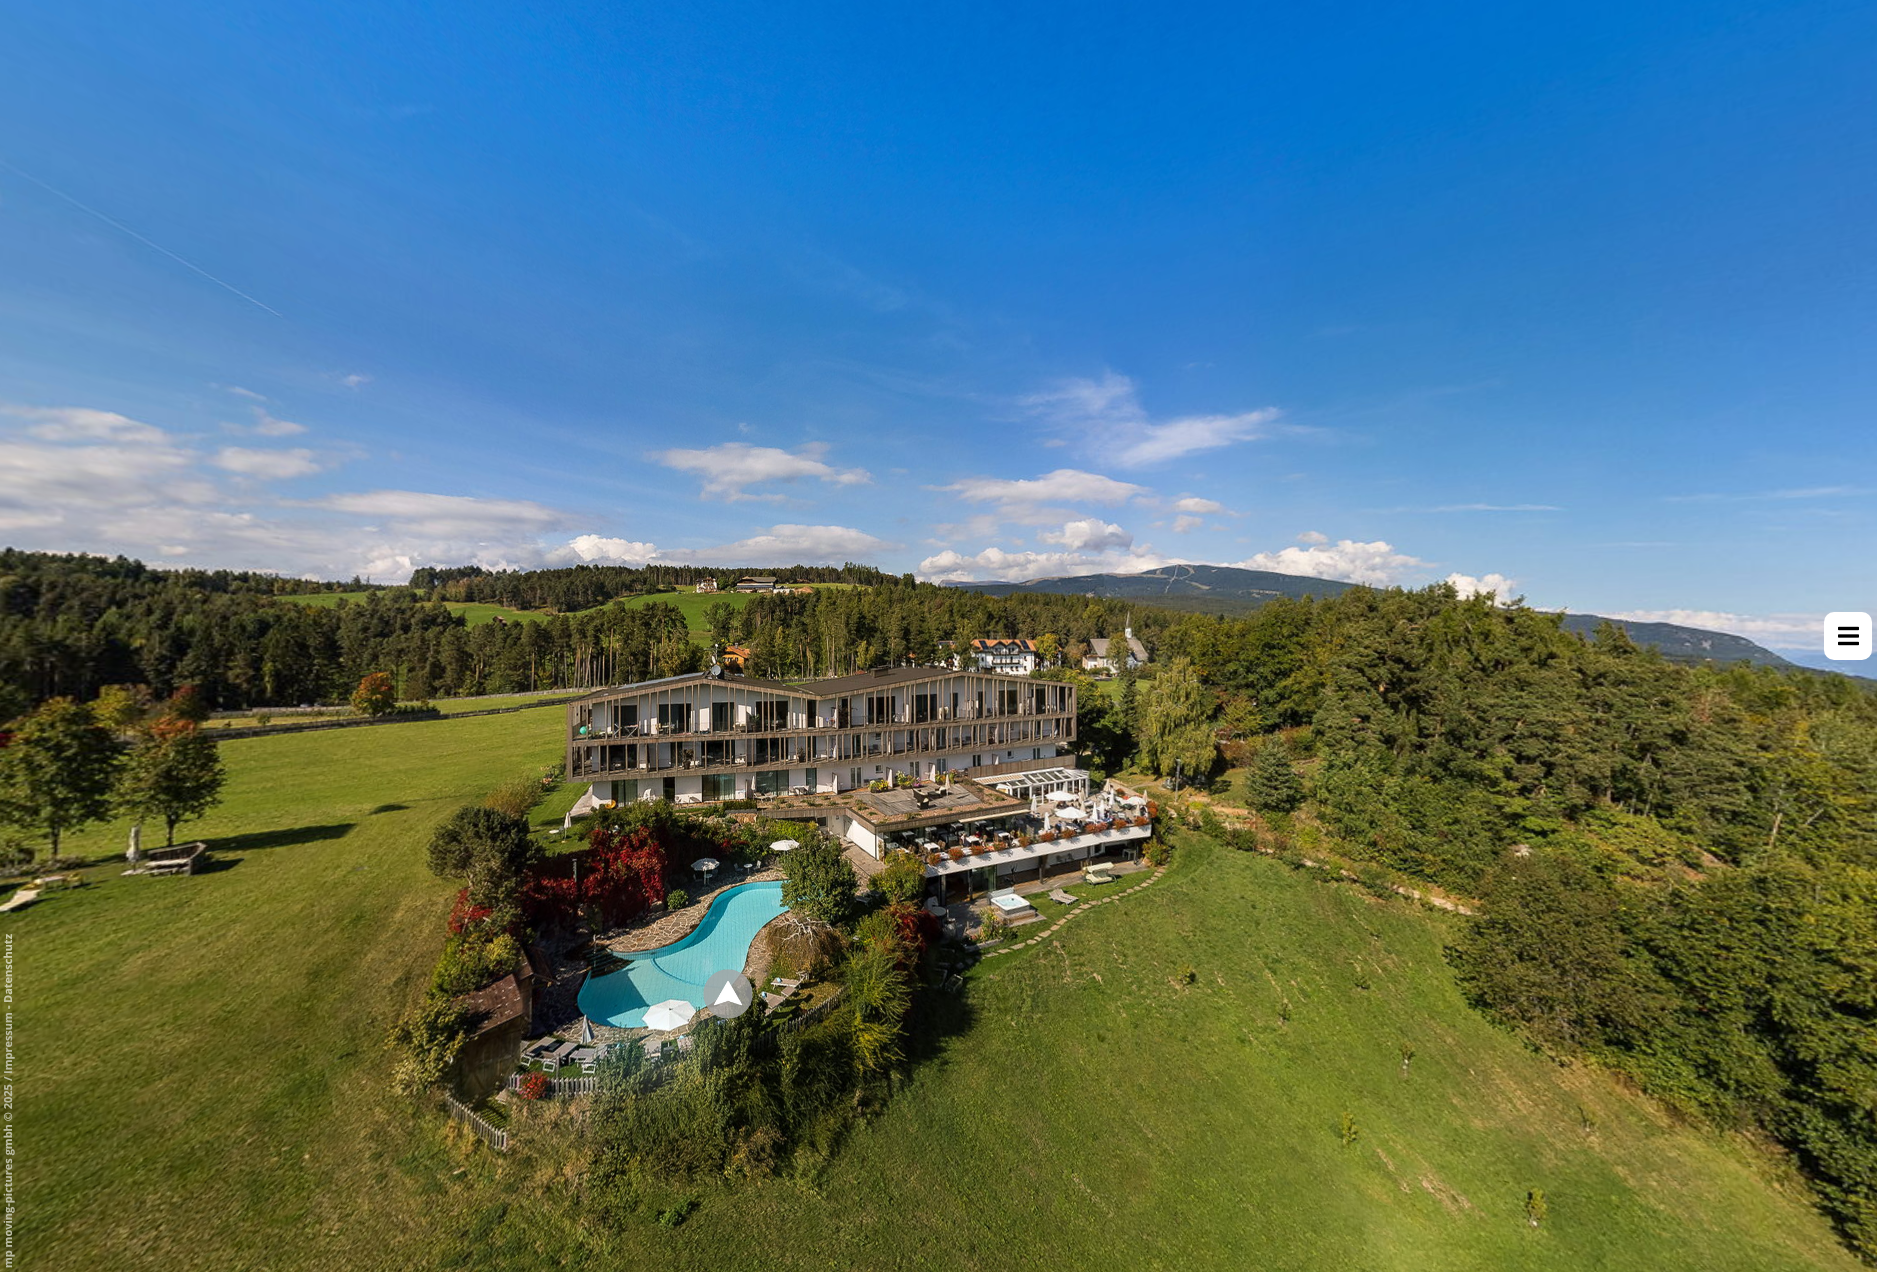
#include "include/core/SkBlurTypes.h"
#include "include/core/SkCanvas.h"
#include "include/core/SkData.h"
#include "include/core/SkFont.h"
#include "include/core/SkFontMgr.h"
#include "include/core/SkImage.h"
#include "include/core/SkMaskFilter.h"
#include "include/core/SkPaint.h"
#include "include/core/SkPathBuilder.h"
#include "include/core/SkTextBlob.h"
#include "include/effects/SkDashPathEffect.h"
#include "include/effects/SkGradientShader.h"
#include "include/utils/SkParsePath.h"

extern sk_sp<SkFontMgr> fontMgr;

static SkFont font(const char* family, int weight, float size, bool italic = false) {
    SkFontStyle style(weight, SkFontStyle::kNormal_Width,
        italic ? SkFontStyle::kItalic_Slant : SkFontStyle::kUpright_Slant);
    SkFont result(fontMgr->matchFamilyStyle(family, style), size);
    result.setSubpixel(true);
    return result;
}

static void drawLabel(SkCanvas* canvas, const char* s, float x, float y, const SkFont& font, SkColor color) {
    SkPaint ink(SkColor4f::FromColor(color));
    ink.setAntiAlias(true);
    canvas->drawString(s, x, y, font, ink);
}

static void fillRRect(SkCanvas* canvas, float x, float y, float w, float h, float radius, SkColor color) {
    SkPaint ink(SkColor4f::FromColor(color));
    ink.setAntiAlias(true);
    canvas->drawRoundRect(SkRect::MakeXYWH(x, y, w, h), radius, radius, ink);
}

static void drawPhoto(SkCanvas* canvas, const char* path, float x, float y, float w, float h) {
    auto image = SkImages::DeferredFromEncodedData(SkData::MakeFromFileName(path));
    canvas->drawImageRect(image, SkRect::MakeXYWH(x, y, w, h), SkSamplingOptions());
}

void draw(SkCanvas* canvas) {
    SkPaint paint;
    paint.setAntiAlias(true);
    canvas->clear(0xFFFFFFFF);
    drawPhoto(canvas, "assets/img1.png", 0, 0, 1877, 1272);
    fillRRect(canvas, 1824, 612, 48, 48, 10, 0xFFFFFFFF);
    drawPhoto(canvas, "assets/img2.png", 1838, 626, 21, 20);
    SkFont font1 = font("Open Sans", 700, 11);
    canvas->save();
    canvas->rotate(-90, 12, 1003);
    drawLabel(canvas, "Datenschutz", 12, 1003, font1, 0xFFC7C7A8);
    canvas->restore();
    canvas->save();
    canvas->rotate(-90, 12, 1009);
    drawLabel(canvas, "-", 12, 1009, font1, 0xFFC7C7A8);
    canvas->restore();
    canvas->save();
    canvas->rotate(-90, 12, 1074);
    drawLabel(canvas, "Impressum", 12, 1074, font1, 0xFFB9BAA2);
    canvas->restore();
    canvas->save();
    canvas->rotate(-90, 12, 1081);
    drawLabel(canvas, "/", 12, 1081, font1, 0xFFB9BAA2);
    canvas->restore();
    canvas->save();
    canvas->rotate(-90, 12, 1268);
    drawLabel(canvas, "mp moving-pictures gmbh © 2025", 12, 1268, font1, 0xFFB9BAA2);
    canvas->restore();
}
